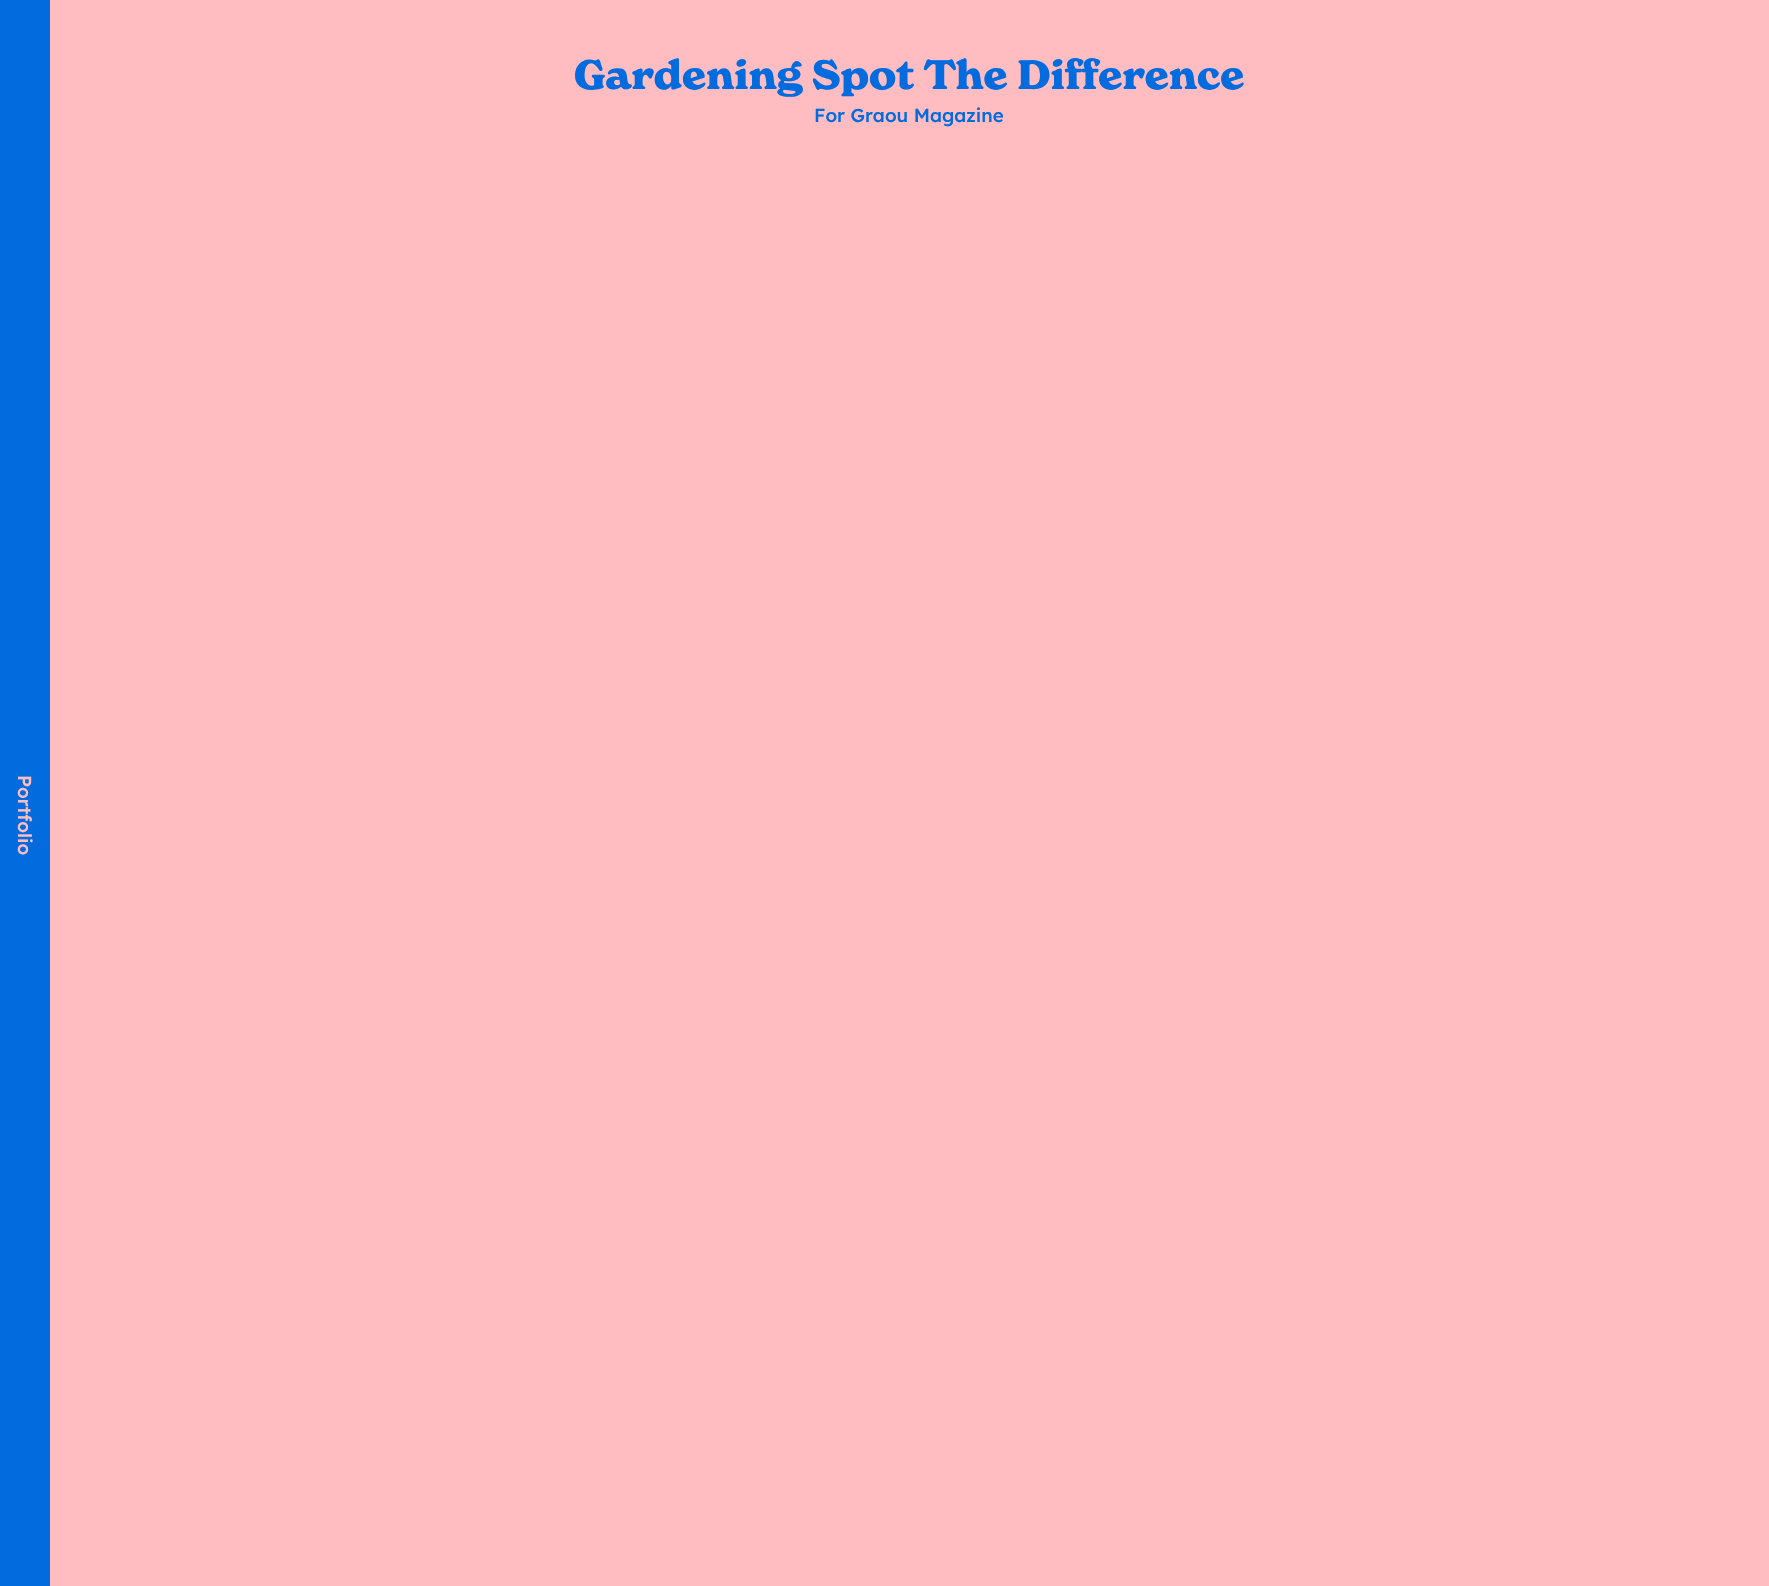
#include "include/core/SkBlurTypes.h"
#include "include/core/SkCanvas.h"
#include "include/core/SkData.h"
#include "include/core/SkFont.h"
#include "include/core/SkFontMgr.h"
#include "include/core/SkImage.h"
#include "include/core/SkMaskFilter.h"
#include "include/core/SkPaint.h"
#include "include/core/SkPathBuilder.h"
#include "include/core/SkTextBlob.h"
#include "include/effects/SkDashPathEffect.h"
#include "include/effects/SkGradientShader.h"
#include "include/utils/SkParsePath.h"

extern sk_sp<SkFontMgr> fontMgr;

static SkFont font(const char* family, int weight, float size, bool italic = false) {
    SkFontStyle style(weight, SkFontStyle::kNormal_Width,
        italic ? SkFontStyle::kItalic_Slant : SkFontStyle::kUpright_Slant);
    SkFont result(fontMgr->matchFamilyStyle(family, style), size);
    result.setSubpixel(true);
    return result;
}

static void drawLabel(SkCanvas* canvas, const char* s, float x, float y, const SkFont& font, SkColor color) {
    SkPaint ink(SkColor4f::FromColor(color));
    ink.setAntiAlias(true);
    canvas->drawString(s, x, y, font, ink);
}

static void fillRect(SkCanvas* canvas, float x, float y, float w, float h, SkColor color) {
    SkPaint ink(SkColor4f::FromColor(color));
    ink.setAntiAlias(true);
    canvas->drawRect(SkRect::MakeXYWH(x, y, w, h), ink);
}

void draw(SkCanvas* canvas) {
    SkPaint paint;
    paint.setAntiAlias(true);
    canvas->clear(0xFFFFBDC2);
    SkFont font1 = font("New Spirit", 700, 40);
    drawLabel(canvas, "Gardening Spot The Difference", 574, 89, font1, 0xFF026CDF);
    SkFont font2 = font("Lexend", 500, 18.75f);
    drawLabel(canvas, "For Graou Magazine", 814, 122, font2, 0xFF026CDF);
    fillRect(canvas, 0, 0, 50, 1586, 0xFF026CDF);
    canvas->save();
    canvas->rotate(90, 18, 775);
    drawLabel(canvas, "Portfolio", 18, 775, font2, 0xFFFFBDC2);
    canvas->restore();
}
